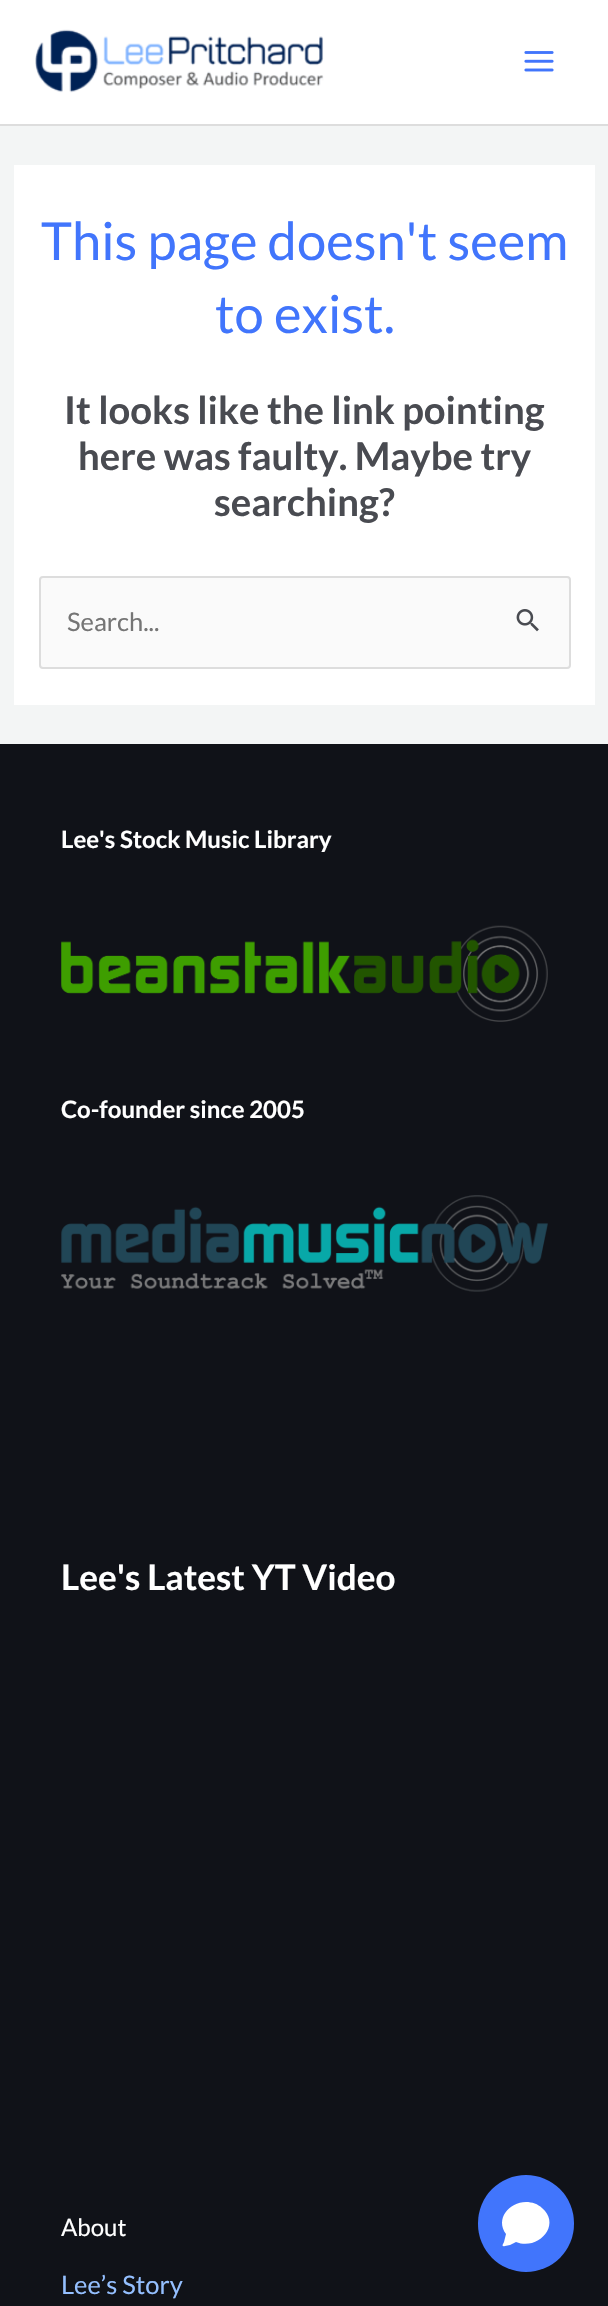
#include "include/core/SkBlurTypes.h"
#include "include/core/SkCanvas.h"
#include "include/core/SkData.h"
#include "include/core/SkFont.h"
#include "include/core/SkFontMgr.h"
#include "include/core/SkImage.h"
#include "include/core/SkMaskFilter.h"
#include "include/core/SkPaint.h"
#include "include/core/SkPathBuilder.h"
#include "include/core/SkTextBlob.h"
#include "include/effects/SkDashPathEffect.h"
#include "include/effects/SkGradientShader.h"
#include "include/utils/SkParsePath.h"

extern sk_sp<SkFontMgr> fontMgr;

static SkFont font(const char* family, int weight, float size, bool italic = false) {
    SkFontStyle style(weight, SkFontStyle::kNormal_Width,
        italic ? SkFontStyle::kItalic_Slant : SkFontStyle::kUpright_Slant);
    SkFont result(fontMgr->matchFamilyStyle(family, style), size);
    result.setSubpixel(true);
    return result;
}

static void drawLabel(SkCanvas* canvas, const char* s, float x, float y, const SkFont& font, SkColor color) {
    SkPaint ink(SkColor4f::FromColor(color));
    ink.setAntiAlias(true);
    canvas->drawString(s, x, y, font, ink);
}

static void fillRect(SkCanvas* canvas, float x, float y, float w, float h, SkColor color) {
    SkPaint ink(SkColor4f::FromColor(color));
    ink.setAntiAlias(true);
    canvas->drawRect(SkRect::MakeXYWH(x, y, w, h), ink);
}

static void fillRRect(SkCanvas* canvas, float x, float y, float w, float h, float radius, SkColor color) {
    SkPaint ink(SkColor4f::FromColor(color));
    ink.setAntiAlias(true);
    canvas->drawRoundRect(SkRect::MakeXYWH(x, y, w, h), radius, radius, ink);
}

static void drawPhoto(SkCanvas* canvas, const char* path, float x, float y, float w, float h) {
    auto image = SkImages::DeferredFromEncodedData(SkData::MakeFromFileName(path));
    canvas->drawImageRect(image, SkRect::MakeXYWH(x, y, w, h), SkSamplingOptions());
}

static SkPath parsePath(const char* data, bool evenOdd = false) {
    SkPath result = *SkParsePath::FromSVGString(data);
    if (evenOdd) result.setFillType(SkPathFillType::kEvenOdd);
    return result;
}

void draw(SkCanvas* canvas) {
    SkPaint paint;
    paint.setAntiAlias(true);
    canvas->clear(0xFFF3F5F5);
    fillRect(canvas, 0, 0, 608, 124, 0xFFFFFFFF);
    fillRect(canvas, 0, 124, 608, 2, 0xFFDDDDDD);
    drawPhoto(canvas, "assets/img1.png", 35, 29, 289, 64);
    drawPhoto(canvas, "assets/img2.png", 524, 51, 30, 21);
    fillRect(canvas, 14, 165, 581, 540, 0xFFFFFFFF);
    SkFont font1 = font("Lato", 400, 52.5f);
    drawLabel(canvas, "This page doesn't seem", 41, 260, font1, 0xFF4175FC);
    drawLabel(canvas, "to exist.", 215, 333, font1, 0xFF4175FC);
    SkFont font2 = font("Lato", 700, 38.25f);
    drawLabel(canvas, "It looks like the link pointing", 64, 424, font2, 0xFF494B51);
    drawLabel(canvas, "here was faulty. Maybe try", 78, 470, font2, 0xFF494B51);
    drawLabel(canvas, "searching?", 214, 516, font2, 0xFF494B51);
    paint.setColor(0xFFFAFAFA);
    canvas->drawRoundRect(SkRect::MakeXYWH(40, 577, 530, 91), 3, 3, paint);
    paint.setStroke(true);
    paint.setStrokeWidth(2);
    paint.setColor(0xFFDDDDDD);
    canvas->drawRoundRect(SkRect::MakeXYWH(40, 577, 530, 91), 3, 3, paint);
    SkFont font3 = font("Lato", 400, 25.5f);
    drawLabel(canvas, "Search...", 67, 631, font3, 0xFF757575);
    drawPhoto(canvas, "assets/img3.png", 516, 609, 23, 23);
    fillRect(canvas, 0, 744, 608, 1562, 0xFF101218);
    SkFont font4 = font("Lato", 700, 24);
    drawLabel(canvas, "Lee's Stock Music Library", 61, 848, font4, 0xFFFFFFFF);
    drawPhoto(canvas, "assets/img4.png", 61, 925, 487, 97);
    drawLabel(canvas, "Co-founder since 2005", 61, 1118, font4, 0xFFFFFFFF);
    drawPhoto(canvas, "assets/img5.png", 61, 1195, 487, 97);
    SkFont font5 = font("Lato", 700, 35.1f);
    drawLabel(canvas, "Lee's Latest YT Video", 61, 1590, font5, 0xFFFFFFFF);
    SkFont font6 = font("Lato", 400, 24);
    drawLabel(canvas, "About", 61, 2236, font6, 0xFFFFFFFF);
    drawLabel(canvas, "Lee’s Story", 61, 2294, font3, 0xFF94BFFF);
    fillRRect(canvas, 478, 2175, 96, 97, 48, 0xFF4175FC);
    paint.setStroke(false);
    paint.setColor(0xFFFFFFFF);
    canvas->drawPath(parsePath("M526 2202C509 2202 495 2219 506 2234L504 2242C503 2244 501 2247 505 2246L510 2245L516 2242C538 2251 562 2225 542 2208C538 2204 532 2202 526 2202Z"), paint);
}
